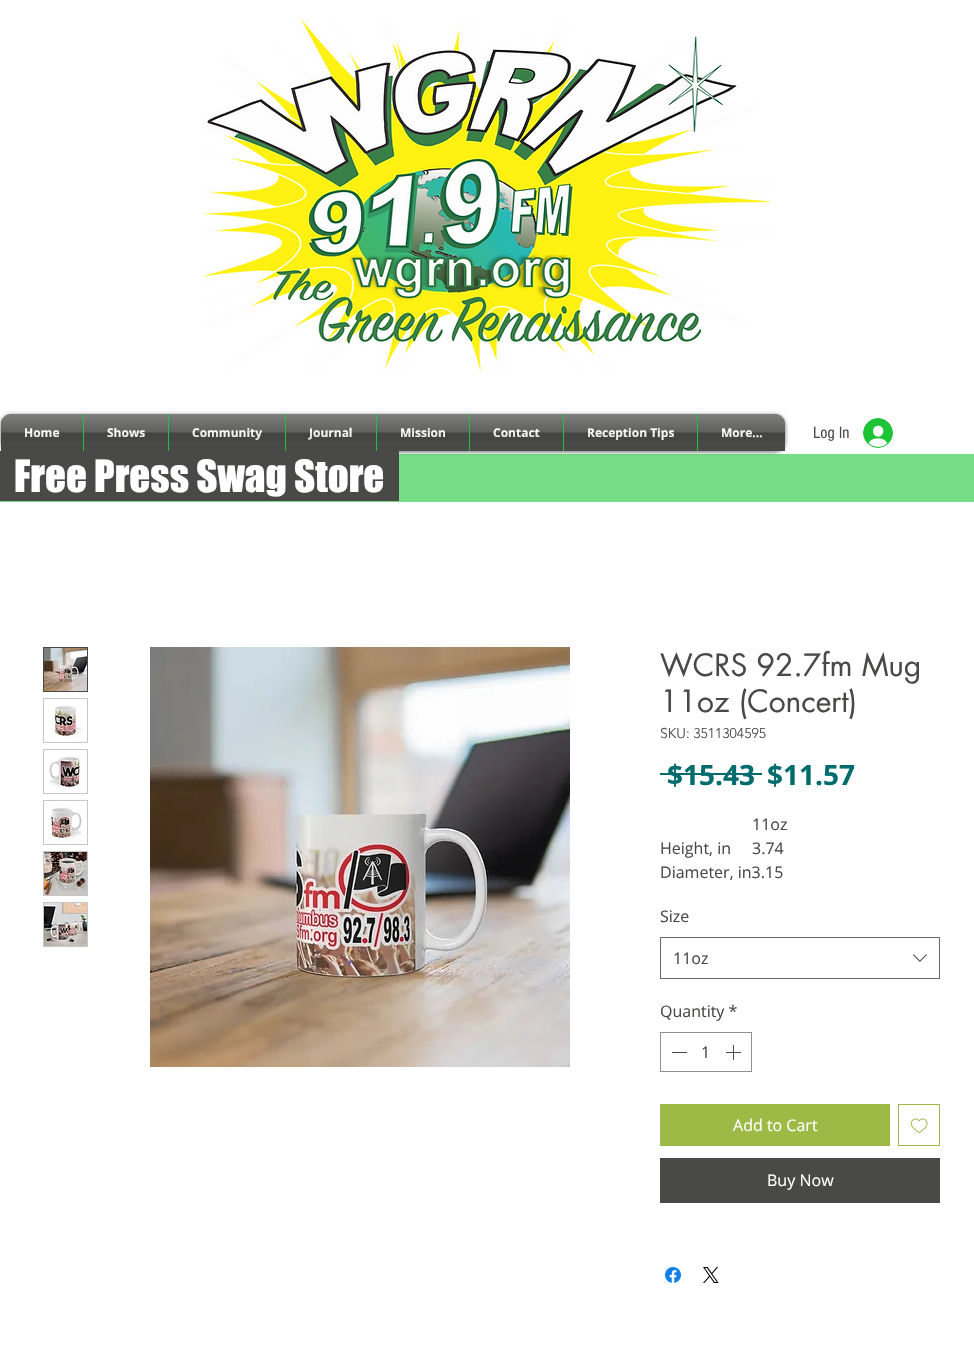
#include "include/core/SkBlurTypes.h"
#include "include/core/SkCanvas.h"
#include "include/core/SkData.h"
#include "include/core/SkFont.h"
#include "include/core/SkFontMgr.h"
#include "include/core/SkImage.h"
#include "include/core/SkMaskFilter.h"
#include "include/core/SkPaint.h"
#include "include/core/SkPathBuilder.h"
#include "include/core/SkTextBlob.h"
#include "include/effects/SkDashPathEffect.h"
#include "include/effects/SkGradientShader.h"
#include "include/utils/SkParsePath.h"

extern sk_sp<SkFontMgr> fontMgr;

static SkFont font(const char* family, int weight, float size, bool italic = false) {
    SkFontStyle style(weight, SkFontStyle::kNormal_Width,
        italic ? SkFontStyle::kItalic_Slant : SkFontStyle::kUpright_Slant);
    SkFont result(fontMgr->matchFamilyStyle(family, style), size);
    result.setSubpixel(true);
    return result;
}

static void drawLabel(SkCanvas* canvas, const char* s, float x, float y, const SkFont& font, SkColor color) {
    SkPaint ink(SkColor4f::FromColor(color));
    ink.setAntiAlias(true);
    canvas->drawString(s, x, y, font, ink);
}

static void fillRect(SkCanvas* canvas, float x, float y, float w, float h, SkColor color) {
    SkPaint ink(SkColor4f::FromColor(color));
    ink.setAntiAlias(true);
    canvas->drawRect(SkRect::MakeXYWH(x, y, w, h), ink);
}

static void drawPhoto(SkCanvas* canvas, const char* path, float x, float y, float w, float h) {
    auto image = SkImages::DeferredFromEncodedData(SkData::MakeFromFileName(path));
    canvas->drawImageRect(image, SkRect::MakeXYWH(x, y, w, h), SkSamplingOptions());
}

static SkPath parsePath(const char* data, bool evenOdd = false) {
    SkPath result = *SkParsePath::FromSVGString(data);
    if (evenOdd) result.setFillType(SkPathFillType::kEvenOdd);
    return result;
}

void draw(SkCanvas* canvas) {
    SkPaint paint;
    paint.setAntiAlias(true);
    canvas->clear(0xFFFFFFFF);
    drawPhoto(canvas, "assets/img1.png", 201, 19, 571, 353);
    paint.setColor(0x99000000);
    paint.setMaskFilter(SkMaskFilter::MakeBlur(kNormal_SkBlurStyle, 2));
    canvas->drawRoundRect(SkRect::MakeXYWH(1, 415, 784, 37), 10, 10, paint);
    paint.setMaskFilter(nullptr);
    drawPhoto(canvas, "assets/img2.png", 1, 414, 784, 10);
    paint.setColor(0xFF494947);
    canvas->drawPath(parsePath("M11 414H83V451H1V424C1 418.5 5.5 414 11 414Z"), paint);
    SkFont font1 = font("Open Sans", 700, 12);
    drawLabel(canvas, "Home", 24, 437, font1, 0xFFFFFFFF);
    drawPhoto(canvas, "assets/img3.png", 1, 414, 82, 27);
    fillRect(canvas, 84, 414, 84, 37, 0xFF494947);
    fillRect(canvas, 83, 414, 1, 37, 0xFF1DC436);
    drawLabel(canvas, "Shows", 107, 437, font1, 0xFFFFFFFF);
    drawPhoto(canvas, "assets/img4.png", 84, 414, 84, 27);
    fillRect(canvas, 169, 414, 116, 37, 0xFF494947);
    fillRect(canvas, 168, 414, 1, 37, 0xFF1DC436);
    drawLabel(canvas, "Community", 192, 437, font1, 0xFFFFFFFF);
    drawPhoto(canvas, "assets/img5.png", 169, 414, 116, 27);
    fillRect(canvas, 286, 414, 90, 37, 0xFF494947);
    fillRect(canvas, 285, 414, 1, 37, 0xFF1DC436);
    drawLabel(canvas, "Journal", 309, 437, font1, 0xFFFFFFFF);
    drawPhoto(canvas, "assets/img6.png", 286, 414, 90, 27);
    fillRect(canvas, 377, 414, 92, 37, 0xFF494947);
    fillRect(canvas, 376, 414, 1, 37, 0xFF1DC436);
    drawLabel(canvas, "Mission", 400, 437, font1, 0xFFFFFFFF);
    drawPhoto(canvas, "assets/img7.png", 377, 414, 92, 27);
    fillRect(canvas, 470, 414, 93, 37, 0xFF494947);
    fillRect(canvas, 469, 414, 1, 37, 0xFF1DC436);
    drawLabel(canvas, "Contact", 493, 437, font1, 0xFFFFFFFF);
    drawPhoto(canvas, "assets/img8.png", 470, 414, 93, 27);
    fillRect(canvas, 564, 414, 133, 37, 0xFF494947);
    fillRect(canvas, 563, 414, 1, 37, 0xFF1DC436);
    drawLabel(canvas, "Reception Tips", 587, 437, font1, 0xFFFFFFFF);
    drawPhoto(canvas, "assets/img9.png", 564, 414, 133, 27);
    canvas->drawPath(parsePath("M697 414H775C780.5 414 785 418.5 785 424V451H697Z"), paint);
    fillRect(canvas, 697, 414, 1, 37, 0xFF1DC436);
    drawLabel(canvas, "More...", 721, 437, font1, 0xFFFFFFFF);
    drawPhoto(canvas, "assets/img10.png", 698, 414, 87, 27);
    SkFont font2 = font("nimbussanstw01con", 400, 17);
    drawLabel(canvas, "Log In", 813, 438, font2, 0xFF494947);
    drawPhoto(canvas, "assets/img11.png", 863, 418, 30, 30);
    fillRect(canvas, 0, 454, 974, 48, 0x991DC436);
    fillRect(canvas, 0, 451, 399, 50, 0xFF494947);
    SkFont font3 = font("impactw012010", 400, 41);
    drawLabel(canvas, "Free Press Swag Store", 14, 492, font3, 0xFFFFFFFF);
    paint.setStroke(true);
    paint.setStrokeWidth(1);
    canvas->drawRect(SkRect::MakeXYWH(43.5f, 647.5f, 44, 44), paint);
    drawPhoto(canvas, "assets/img12.png", 44, 648, 43, 43);
    paint.setColor(0xFFC7C7C5);
    canvas->drawRect(SkRect::MakeXYWH(43.5f, 698.5f, 44, 44), paint);
    drawPhoto(canvas, "assets/img13.png", 52, 703, 31, 36);
    canvas->drawRect(SkRect::MakeXYWH(43.5f, 749.5f, 44, 44), paint);
    drawPhoto(canvas, "assets/img14.png", 48, 754, 38, 37);
    canvas->drawRect(SkRect::MakeXYWH(43.5f, 800.5f, 44, 44), paint);
    drawPhoto(canvas, "assets/img15.png", 48, 805, 34, 36);
    canvas->drawRect(SkRect::MakeXYWH(43.5f, 851.5f, 44, 44), paint);
    drawPhoto(canvas, "assets/img16.png", 44, 852, 43, 43);
    canvas->drawRect(SkRect::MakeXYWH(43.5f, 902.5f, 44, 44), paint);
    drawPhoto(canvas, "assets/img17.png", 44, 903, 43, 43);
    drawPhoto(canvas, "assets/img18.png", 150, 647, 420, 420);
    SkFont font4 = font("futura", 400, 30);
    drawLabel(canvas, "WCRS 92.7fm Mug", 660, 676, font4, 0xFF494947);
    drawLabel(canvas, "11oz (Concert)", 660, 712, font4, 0xFF494947);
    SkFont font5 = font("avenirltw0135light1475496", 300, 14);
    drawLabel(canvas, "SKU: 3511304595", 660, 738, font5, 0xFF494947);
    SkFont font6 = font("Open Sans", 700, 28);
    drawLabel(canvas, "$15.43", 667, 785, font6, 0xFF006C6D);
    fillRect(canvas, 660, 773, 102, 2, 0xFF006C6D);
    drawLabel(canvas, "$11.57", 767, 785, font6, 0xFF006C6D);
    SkFont font7 = font("Open Sans", 400, 16);
    drawLabel(canvas, "11oz", 752, 830, font7, 0xFF494947);
    drawLabel(canvas, "Height, in", 660, 854, font7, 0xFF494947);
    drawLabel(canvas, "3.74", 752, 854, font7, 0xFF494947);
    drawLabel(canvas, "Diameter, in3.15", 660, 878, font7, 0xFF494947);
    drawLabel(canvas, "Size", 660, 922, font7, 0xFF494947);
    paint.setColor(0xFF666666);
    canvas->drawRect(SkRect::MakeXYWH(660.5f, 937.5f, 279, 41), paint);
    drawLabel(canvas, "11oz", 673, 964, font7, 0xFF494947);
    drawPhoto(canvas, "assets/img19.png", 912, 954, 15, 8);
    drawLabel(canvas, "Quantity *", 660, 1017, font7, 0xFF494947);
    paint.setColor(0xFF929291);
    canvas->drawRect(SkRect::MakeXYWH(660.5f, 1032.5f, 91, 39), paint);
    fillRect(canvas, 672, 1052, 15, 1, 0xFF494947);
    drawLabel(canvas, "1", 701, 1058, font7, 0xFF494947);
    drawPhoto(canvas, "assets/img20.png", 726, 1045, 15, 15);
    fillRect(canvas, 660, 1104, 230, 42, 0xFF9DB946);
    drawLabel(canvas, "Add to Cart", 733, 1131, font7, 0xFFFFFFFF);
    paint.setColor(0xFF9DB946);
    canvas->drawRect(SkRect::MakeXYWH(898.5f, 1104.5f, 41, 41), paint);
    drawPhoto(canvas, "assets/img21.png", 910, 1118, 18, 15);
    fillRect(canvas, 660, 1158, 280, 45, 0xFF494947);
    drawLabel(canvas, "Buy Now", 767, 1186, font7, 0xFFFFFFFF);
    drawPhoto(canvas, "assets/img22.png", 665, 1267, 16, 16);
    drawPhoto(canvas, "assets/img23.png", 703, 1267, 16, 16);
}
